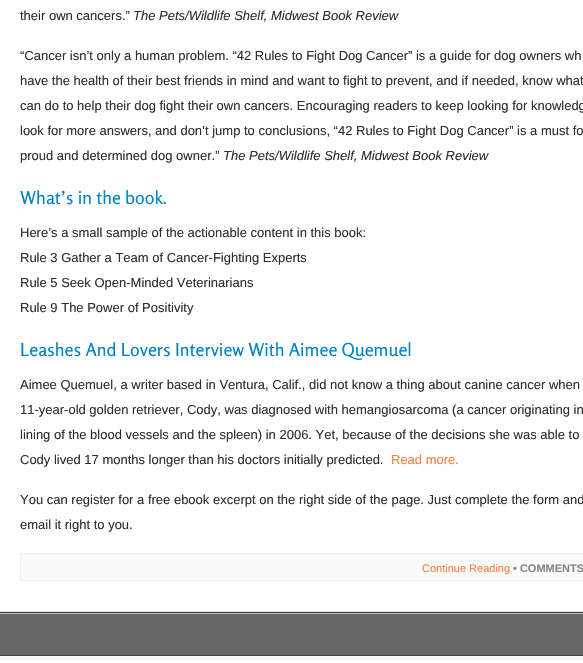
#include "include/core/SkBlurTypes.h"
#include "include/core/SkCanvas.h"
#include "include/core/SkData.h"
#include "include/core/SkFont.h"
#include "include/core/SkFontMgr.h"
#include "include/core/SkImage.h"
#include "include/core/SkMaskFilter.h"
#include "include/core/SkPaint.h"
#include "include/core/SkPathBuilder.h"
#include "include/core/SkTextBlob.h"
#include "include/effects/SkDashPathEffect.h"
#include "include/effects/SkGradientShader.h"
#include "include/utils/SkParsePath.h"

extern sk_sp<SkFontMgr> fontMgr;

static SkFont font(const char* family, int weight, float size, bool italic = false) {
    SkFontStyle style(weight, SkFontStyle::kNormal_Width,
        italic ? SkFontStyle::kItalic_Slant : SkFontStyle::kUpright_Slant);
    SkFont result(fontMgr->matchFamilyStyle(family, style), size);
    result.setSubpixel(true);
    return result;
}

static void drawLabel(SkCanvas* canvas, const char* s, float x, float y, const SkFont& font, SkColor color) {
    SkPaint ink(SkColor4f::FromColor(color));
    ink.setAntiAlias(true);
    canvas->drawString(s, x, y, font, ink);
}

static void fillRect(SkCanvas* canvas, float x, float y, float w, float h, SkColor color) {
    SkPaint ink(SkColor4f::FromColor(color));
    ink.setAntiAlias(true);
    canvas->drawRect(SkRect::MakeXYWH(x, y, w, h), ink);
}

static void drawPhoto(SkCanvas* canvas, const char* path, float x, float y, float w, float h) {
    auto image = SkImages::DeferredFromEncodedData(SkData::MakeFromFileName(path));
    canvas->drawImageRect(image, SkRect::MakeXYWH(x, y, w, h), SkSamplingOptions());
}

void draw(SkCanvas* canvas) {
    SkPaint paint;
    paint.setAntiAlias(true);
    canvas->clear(0xFF666666);
    fillRect(canvas, 0, 0, 583, 611, 0xFFFFFFFF);
    fillRect(canvas, 0, 611, 583, 1, 0xFFDDDDDD);
    SkFont font1 = font("Liberation Sans", 400, 13);
    drawLabel(canvas, "their own cancers.”", 20, 20, font1, 0xFF2E2E2E);
    SkFont font2 = font("Liberation Sans", 400, 13, true);
    drawLabel(canvas, "The Pets/Wildlife Shelf, Midwest Book Review", 133, 20, font2, 0xFF2E2E2E);
    drawLabel(canvas, "“Cancer isn’t only a human problem. “42 Rules to Fight Dog Cancer” is a guide for dog owners wh", 20, 60, font1, 0xFF2E2E2E);
    drawLabel(canvas, "have the health of their best friends in mind and want to fight to prevent, and if needed, know what", 20, 85, font1, 0xFF2E2E2E);
    drawLabel(canvas, "can do to help their dog fight their own cancers. Encouraging readers to keep looking for knowledg", 20, 110, font1, 0xFF2E2E2E);
    drawLabel(canvas, "look for more answers, and don’t jump to conclusions, “42 Rules to Fight Dog Cancer” is a must fo", 20, 135, font1, 0xFF2E2E2E);
    drawLabel(canvas, "proud and determined dog owner.”", 20, 160, font1, 0xFF2E2E2E);
    drawLabel(canvas, "The Pets/Wildlife Shelf, Midwest Book Review", 223, 160, font2, 0xFF2E2E2E);
    SkFont font3 = font("Rosario", 400, 18);
    drawLabel(canvas, "What’s in the book.", 20, 204, font3, 0xFF0083C0);
    drawLabel(canvas, "Here’s a small sample of the actionable content in this book:", 20, 237, font1, 0xFF2E2E2E);
    drawLabel(canvas, "Rule 3 Gather a Team of Cancer-Fighting Experts", 20, 262, font1, 0xFF2E2E2E);
    drawLabel(canvas, "Rule 5 Seek Open-Minded Veterinarians", 20, 287, font1, 0xFF2E2E2E);
    drawLabel(canvas, "Rule 9 The Power of Positivity", 20, 312, font1, 0xFF2E2E2E);
    drawLabel(canvas, "Leashes And Lovers Interview With Aimee Quemuel", 20, 356, font3, 0xFF0083C0);
    drawLabel(canvas, "Aimee Quemuel, a writer based in Ventura, Calif., did not know a thing about canine cancer when", 20, 389, font1, 0xFF2E2E2E);
    drawLabel(canvas, "11-year-old golden retriever, Cody, was diagnosed with hemangiosarcoma (a cancer originating in", 20, 414, font1, 0xFF2E2E2E);
    drawLabel(canvas, "lining of the blood vessels and the spleen) in 2006. Yet, because of the decisions she was able to", 20, 439, font1, 0xFF2E2E2E);
    drawLabel(canvas, "Cody lived 17 months longer than his doctors initially predicted.", 20, 464, font1, 0xFF2E2E2E);
    drawLabel(canvas, "Read more.", 391, 464, font1, 0xFFFC7E3F);
    drawLabel(canvas, "You can register for a free ebook excerpt on the right side of the page. Just complete the form and", 20, 504, font1, 0xFF2E2E2E);
    drawLabel(canvas, "email it right to you.", 20, 529, font1, 0xFF2E2E2E);
    paint.setColor(0xFFFAFAFA);
    canvas->drawRect(SkRect::MakeXYWH(20.5f, 553.5f, 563, 27), paint);
    paint.setStroke(true);
    paint.setStrokeWidth(1);
    paint.setColor(0xFFEEEEEE);
    canvas->drawRect(SkRect::MakeXYWH(20.5f, 553.5f, 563, 27), paint);
    SkFont font4 = font("Liberation Sans", 400, 11);
    drawLabel(canvas, "Continue Reading", 422, 572, font4, 0xFFFC7E3F);
    SkFont font5 = font("Liberation Sans", 700, 11);
    drawLabel(canvas, "• COMMENTS", 513, 572, font5, 0xFF868686);
    fillRect(canvas, 0, 613, 583, 1, 0xFFC2C2C2);
    fillRect(canvas, 0, 612, 583, 1, 0xFF444444);
    fillRect(canvas, 0, 655, 583, 1, 0xFF444444);
    fillRect(canvas, 0, 656, 583, 7, 0xFFFFFFFF);
    drawPhoto(canvas, "assets/img1.png", 0, 657, 583, 4);
}
